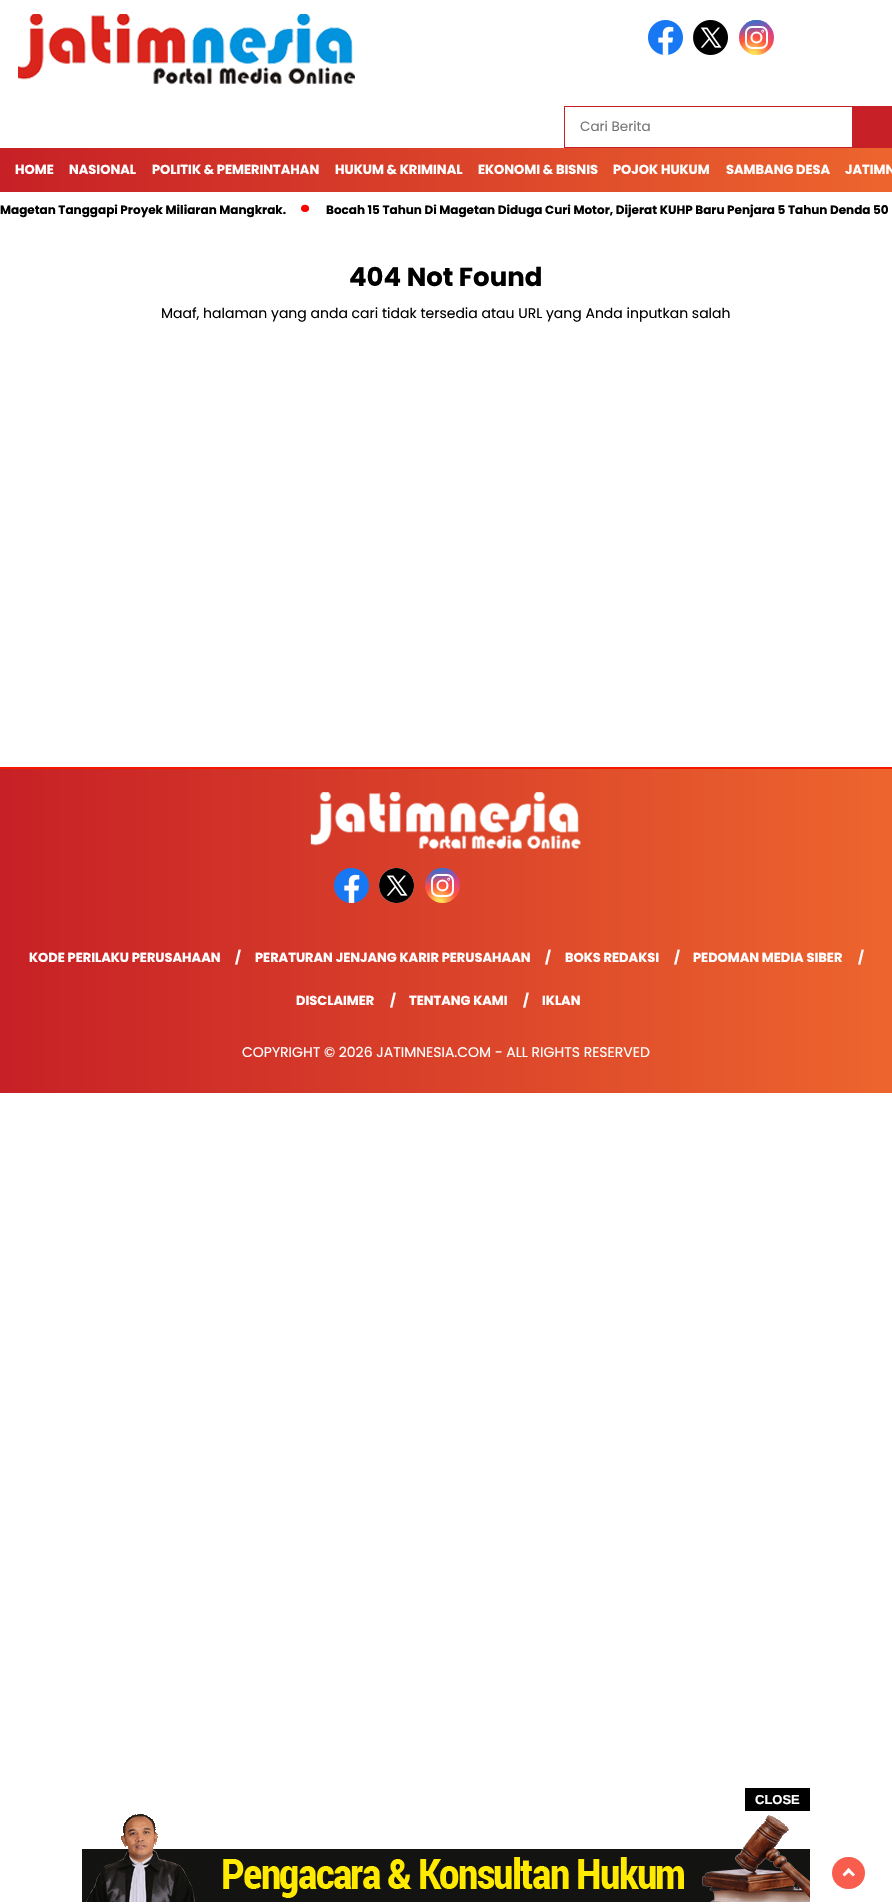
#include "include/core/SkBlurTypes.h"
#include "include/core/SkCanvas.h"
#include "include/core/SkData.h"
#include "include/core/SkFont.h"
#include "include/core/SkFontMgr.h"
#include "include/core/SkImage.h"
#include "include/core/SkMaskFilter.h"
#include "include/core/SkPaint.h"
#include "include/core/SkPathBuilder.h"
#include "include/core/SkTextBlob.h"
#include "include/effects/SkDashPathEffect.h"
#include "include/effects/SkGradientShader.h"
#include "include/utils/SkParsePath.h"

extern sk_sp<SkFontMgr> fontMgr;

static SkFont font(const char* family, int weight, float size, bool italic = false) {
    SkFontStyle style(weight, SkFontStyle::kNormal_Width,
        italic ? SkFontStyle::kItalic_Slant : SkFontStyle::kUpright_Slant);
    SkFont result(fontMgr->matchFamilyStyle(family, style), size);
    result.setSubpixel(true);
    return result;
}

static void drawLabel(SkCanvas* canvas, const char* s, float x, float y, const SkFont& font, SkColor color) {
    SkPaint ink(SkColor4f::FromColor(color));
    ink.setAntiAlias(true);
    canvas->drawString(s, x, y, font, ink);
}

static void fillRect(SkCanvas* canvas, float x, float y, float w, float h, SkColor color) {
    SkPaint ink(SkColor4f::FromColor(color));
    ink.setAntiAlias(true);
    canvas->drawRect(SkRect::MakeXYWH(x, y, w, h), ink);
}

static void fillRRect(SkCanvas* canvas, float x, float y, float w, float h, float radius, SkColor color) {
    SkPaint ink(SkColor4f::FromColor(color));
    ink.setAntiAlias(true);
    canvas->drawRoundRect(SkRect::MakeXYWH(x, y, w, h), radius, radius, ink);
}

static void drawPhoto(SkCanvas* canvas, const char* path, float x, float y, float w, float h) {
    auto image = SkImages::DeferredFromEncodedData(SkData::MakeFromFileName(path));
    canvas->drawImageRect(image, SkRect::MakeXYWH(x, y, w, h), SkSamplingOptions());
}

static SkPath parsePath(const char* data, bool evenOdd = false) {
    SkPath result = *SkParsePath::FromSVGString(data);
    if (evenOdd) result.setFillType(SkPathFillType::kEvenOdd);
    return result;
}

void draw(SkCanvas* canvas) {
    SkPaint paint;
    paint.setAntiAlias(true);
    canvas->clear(0xFFFFFFFF);
    drawPhoto(canvas, "assets/img1.png", 18, 14, 337, 70);
    drawPhoto(canvas, "assets/img2.png", 648, 20, 35, 35);
    drawPhoto(canvas, "assets/img3.png", 693, 20, 35, 35);
    {
        const SkColor colors[] = {0xFFFFDD55, 0xFFFF543E, 0xFFC837AB};
        const float stops[] = {0.1f, 0.5f, 1};
        paint.setShader(SkGradientShader::MakeRadial({753, 55}, 35, colors, stops, 3, SkTileMode::kClamp));
        paint.setAlpha(255);
    }
    canvas->drawCircle(756.5f, 37.5f, 17.5f, paint);
    {
        const SkColor colors[] = {0xFF3771C8, 0x003771C8};
        const float stops[] = {0.1f, 0.5f};
        const SkPoint ends[] = {{739, 20}, {746, 55}};
        paint.setShader(SkGradientShader::MakeLinear(ends, colors, stops, 2, SkTileMode::kClamp));
        paint.setAlpha(255);
    }
    canvas->drawCircle(756.5f, 37.5f, 17.5f, paint);
    paint.setStroke(true);
    paint.setStrokeWidth(2);
    paint.setShader(nullptr);
    paint.setColor(0xFFFFFFFF);
    canvas->drawRoundRect(SkRect::MakeXYWH(746, 27, 21, 21), 6, 6, paint);
    paint.setStrokeWidth(2.1f);
    canvas->drawCircle(756.5f, 37.5f, 5, paint);
    canvas->drawCircle(762.7f, 31.3f, 0.4f, paint);
    paint.setStrokeWidth(1);
    paint.setColor(0xFFC72026);
    canvas->drawRect(SkRect::MakeXYWH(564.5f, 106.5f, 288, 41), paint);
    SkFont font1 = font("Poppins", 400, 13.5f);
    drawLabel(canvas, "Cari Berita", 580, 131, font1, 0xFF757575);
    fillRect(canvas, 853, 106, 39, 42, 0xFFC72026);
    paint.setStroke(false);
    {
        const SkColor colors[] = {0xFFC72026, 0xFFED652E};
        const float stops[] = {0, 1};
        const SkPoint ends[] = {{0, 170}, {892, 170}};
        paint.setShader(SkGradientShader::MakeLinear(ends, colors, stops, 2, SkTileMode::kClamp));
        paint.setAlpha(255);
    }
    canvas->drawRect(SkRect::MakeXYWH(0, 148, 892, 44), paint);
    SkFont font2 = font("Poppins", 700, 13);
    drawLabel(canvas, "HOME", 15, 174, font2, 0xFFFFFFFF);
    drawLabel(canvas, "NASIONAL", 69, 174, font2, 0xFFFFFFFF);
    drawLabel(canvas, "POLITIK & PEMERINTAHAN", 152, 174, font2, 0xFFFFFFFF);
    drawLabel(canvas, "HUKUM & KRIMINAL", 335, 174, font2, 0xFFFFFFFF);
    drawLabel(canvas, "EKONOMI & BISNIS", 478, 174, font2, 0xFFFFFFFF);
    drawLabel(canvas, "POJOK HUKUM", 613, 174, font2, 0xFFFFFFFF);
    drawLabel(canvas, "SAMBANG DESA", 726, 174, font2, 0xFFFFFFFF);
    drawLabel(canvas, "JATIMN", 845, 174, font2, 0xFFFFFFFF);
    SkFont font3 = font("Poppins", 700, 12);
    drawLabel(canvas, "Magetan Tanggapi Proyek Miliaran Mangkrak.", 0, 214, font3, 0xFF000000);
    SkFont font4 = font("Poppins", 700, 40);
    drawLabel(canvas, "·", 299, 221, font4, 0xFFFF0000);
    drawLabel(canvas, "Bocah 15 Tahun Di Magetan Diduga Curi Motor, Dijerat KUHP Baru Penjara 5 Tahun Denda 50", 326, 214, font3, 0xFF000000);
    SkFont font5 = font("Poppins", 700, 26);
    drawLabel(canvas, "404 Not Found", 349, 286, font5, 0xFF000000);
    SkFont font6 = font("Poppins", 400, 14);
    drawLabel(canvas, "Maaf, halaman yang anda cari tidak tersedia atau URL yang Anda inputkan salah", 161, 318, font6, 0xFF000000);
    {
        const SkColor colors[] = {0xFFC72026, 0xFFED652E};
        const float stops[] = {0, 1};
        const SkPoint ends[] = {{0, 931}, {892, 931}};
        paint.setShader(SkGradientShader::MakeLinear(ends, colors, stops, 2, SkTileMode::kClamp));
        paint.setAlpha(255);
    }
    canvas->drawRect(SkRect::MakeXYWH(0, 769, 892, 324), paint);
    fillRect(canvas, 0, 767, 892, 2, 0xFFF51700);
    drawPhoto(canvas, "assets/img4.png", 310, 792, 271, 57);
    drawPhoto(canvas, "assets/img5.png", 334, 868, 35, 35);
    drawPhoto(canvas, "assets/img6.png", 379, 868, 35, 35);
    {
        const SkColor colors[] = {0xFFFFDD55, 0xFFFF543E, 0xFFC837AB};
        const float stops[] = {0.1f, 0.5f, 1};
        paint.setShader(SkGradientShader::MakeRadial({439, 903}, 35, colors, stops, 3, SkTileMode::kClamp));
        paint.setAlpha(255);
    }
    canvas->drawCircle(442.5f, 885.5f, 17.5f, paint);
    {
        const SkColor colors[] = {0xFF3771C8, 0x003771C8};
        const float stops[] = {0.1f, 0.5f};
        const SkPoint ends[] = {{425, 868}, {432, 903}};
        paint.setShader(SkGradientShader::MakeLinear(ends, colors, stops, 2, SkTileMode::kClamp));
        paint.setAlpha(255);
    }
    canvas->drawCircle(442.5f, 885.5f, 17.5f, paint);
    paint.setStroke(true);
    paint.setStrokeWidth(2);
    paint.setShader(nullptr);
    paint.setColor(0xFFFFFFFF);
    canvas->drawRoundRect(SkRect::MakeXYWH(432, 875, 21, 21), 6, 6, paint);
    paint.setStrokeWidth(2.1f);
    canvas->drawCircle(442.5f, 885.5f, 5, paint);
    canvas->drawCircle(448.7f, 879.3f, 0.4f, paint);
    drawLabel(canvas, "KODE PERILAKU PERUSAHAAN", 29, 962, font2, 0xFFFFFFFF);
    drawLabel(canvas, "/", 235, 962, font2, 0xFFFFFFFF);
    drawLabel(canvas, "PERATURAN JENJANG KARIR PERUSAHAAN", 255, 962, font2, 0xFFFFFFFF);
    drawLabel(canvas, "/", 545, 962, font2, 0xFFFFFFFF);
    drawLabel(canvas, "BOKS REDAKSI", 565, 962, font2, 0xFFFFFFFF);
    drawLabel(canvas, "/", 674, 962, font2, 0xFFFFFFFF);
    drawLabel(canvas, "PEDOMAN MEDIA SIBER", 693, 962, font2, 0xFFFFFFFF);
    drawLabel(canvas, "/", 858, 962, font2, 0xFFFFFFFF);
    drawLabel(canvas, "DISCLAIMER", 296, 1005, font2, 0xFFFFFFFF);
    drawLabel(canvas, "/", 390, 1005, font2, 0xFFFFFFFF);
    drawLabel(canvas, "TENTANG KAMI", 409, 1005, font2, 0xFFFFFFFF);
    drawLabel(canvas, "/", 523, 1005, font2, 0xFFFFFFFF);
    drawLabel(canvas, "IKLAN", 542, 1005, font2, 0xFFFFFFFF);
    drawLabel(canvas, "COPYRIGHT © 2026 JATIMNESIA.COM - ALL RIGHTS RESERVED", 242, 1057, font6, 0xFFFFFFFF);
    fillRRect(canvas, 832, 1857, 33, 32, 16, 0xFFF85D4D);
    paint.setStroke(false);
    canvas->drawPath(parsePath("M844.5 1876.5L842.5 1874.5L848.5 1868L851 1870.5Z"), paint);
    canvas->drawPath(parsePath("M853 1876.5L846.5 1870.5L848.5 1868L855 1874.5Z"), paint);
    fillRect(canvas, 745, 1788, 65, 23, 0xFF000000);
    SkFont font7 = font("Liberation Sans", 700, 13);
    drawLabel(canvas, "CLOSE", 755, 1804, font7, 0xFFFFFFFF);
    drawPhoto(canvas, "assets/img7.png", 82, 1814, 728, 88);
}
